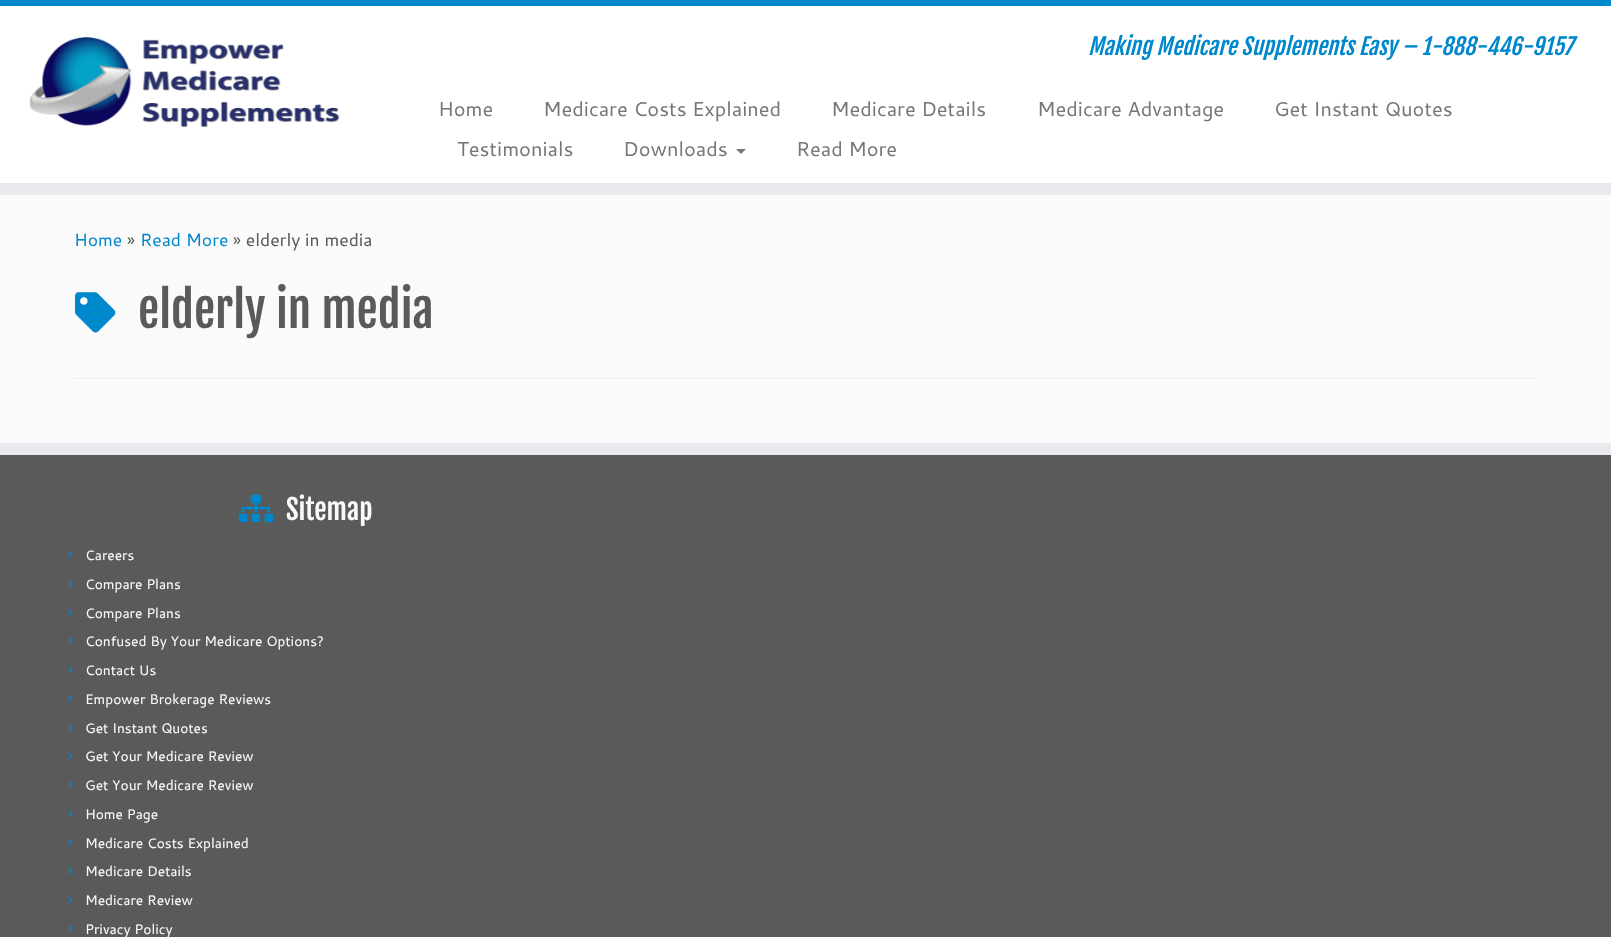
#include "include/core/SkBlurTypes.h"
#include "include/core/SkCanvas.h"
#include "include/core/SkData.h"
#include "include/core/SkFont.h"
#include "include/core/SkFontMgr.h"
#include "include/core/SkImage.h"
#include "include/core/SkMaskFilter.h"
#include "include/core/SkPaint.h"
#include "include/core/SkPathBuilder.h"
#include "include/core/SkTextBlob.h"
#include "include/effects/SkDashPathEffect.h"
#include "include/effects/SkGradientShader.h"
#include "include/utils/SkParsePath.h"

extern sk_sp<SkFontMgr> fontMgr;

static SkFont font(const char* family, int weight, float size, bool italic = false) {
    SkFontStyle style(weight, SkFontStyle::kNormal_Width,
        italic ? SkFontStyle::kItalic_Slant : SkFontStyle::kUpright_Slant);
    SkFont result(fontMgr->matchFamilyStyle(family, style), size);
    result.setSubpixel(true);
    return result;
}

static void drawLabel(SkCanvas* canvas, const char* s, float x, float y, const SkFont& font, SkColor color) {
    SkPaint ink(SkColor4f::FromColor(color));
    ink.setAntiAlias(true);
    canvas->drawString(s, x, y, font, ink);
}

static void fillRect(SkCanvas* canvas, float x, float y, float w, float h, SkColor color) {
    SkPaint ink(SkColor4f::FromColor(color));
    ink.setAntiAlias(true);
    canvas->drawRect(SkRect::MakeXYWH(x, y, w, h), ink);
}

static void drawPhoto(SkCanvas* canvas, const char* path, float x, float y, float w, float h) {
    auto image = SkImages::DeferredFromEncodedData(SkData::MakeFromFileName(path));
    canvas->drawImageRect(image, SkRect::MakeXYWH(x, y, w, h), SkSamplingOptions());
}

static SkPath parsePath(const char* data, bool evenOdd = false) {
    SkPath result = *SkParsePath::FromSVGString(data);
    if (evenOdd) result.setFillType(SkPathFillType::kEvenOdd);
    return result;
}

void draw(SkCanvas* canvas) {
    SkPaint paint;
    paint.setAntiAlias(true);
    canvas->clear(0xFFFAFAFA);
    fillRect(canvas, 0, 6, 1611, 177, 0xFFFFFFFF);
    fillRect(canvas, 0, 0, 1611, 6, 0xFF0088CC);
    fillRect(canvas, 0, 183, 1611, 12, 0xFFE9EAEE);
    drawPhoto(canvas, "assets/img1.png", 29, 37, 311, 91);
    SkFont font1 = font("Fjalla One", 400, 22.5f, true);
    drawLabel(canvas, "Making Medicare Supplements Easy – 1-888-446-9157", 1088, 55, font1, 0xFF0088CC);
    SkFont font2 = font("Cantarell", 400, 20);
    drawLabel(canvas, "Home", 438, 116, font2, 0xFF777777);
    drawLabel(canvas, "Medicare Costs Explained", 543, 116, font2, 0xFF777777);
    drawLabel(canvas, "Medicare Details", 831, 116, font2, 0xFF777777);
    drawLabel(canvas, "Medicare Advantage", 1037, 116, font2, 0xFF777777);
    drawLabel(canvas, "Get Instant Quotes", 1274, 116, font2, 0xFF777777);
    drawLabel(canvas, "Testimonials", 457, 156, font2, 0xFF777777);
    drawLabel(canvas, "Downloads", 623, 156, font2, 0xFF777777);
    paint.setColor(0xFF777777);
    canvas->drawPath(parsePath("M736 149H746L741 154Z"), paint);
    drawLabel(canvas, "Read More", 796, 156, font2, 0xFF777777);
    SkFont font3 = font("Cantarell", 400, 17.5f);
    drawLabel(canvas, "Home", 74, 246, font3, 0xFF0088CC);
    drawLabel(canvas, "»", 127, 246, font3, 0xFF5A5A5A);
    drawLabel(canvas, "Read More", 140, 246, font3, 0xFF0088CC);
    drawLabel(canvas, "» elderly in media", 233, 246, font3, 0xFF5A5A5A);
    drawPhoto(canvas, "assets/img2.png", 75, 292, 41, 41);
    SkFont font4 = font("Fjalla One", 400, 47.5f);
    drawLabel(canvas, "elderly in media", 138, 328, font4, 0xFF5A5A5A);
    fillRect(canvas, 75, 378, 1463, 1, 0xFFEEEEEE);
    fillRect(canvas, 75, 379, 1463, 1, 0xFFFFFFFF);
    fillRect(canvas, 0, 455, 1611, 482, 0xFF5A5A5A);
    fillRect(canvas, 0, 443, 1611, 12, 0xFFE9EAEE);
    drawPhoto(canvas, "assets/img3.png", 238, 494, 36, 29);
    SkFont font5 = font("Fjalla One", 400, 27.5f);
    drawLabel(canvas, "Sitemap", 286, 520, font5, 0xFFFAFAFA);
    drawLabel(canvas, "›", 68, 560, font3, 0xFF0088CC);
    SkFont font6 = font("Cantarell", 400, 13.75f);
    drawLabel(canvas, "Careers", 85, 560, font6, 0xFFFAFAFA);
    drawLabel(canvas, "›", 68, 589, font3, 0xFF0088CC);
    drawLabel(canvas, "Compare Plans", 85, 589, font6, 0xFFFAFAFA);
    drawLabel(canvas, "›", 68, 618, font3, 0xFF0088CC);
    drawLabel(canvas, "Compare Plans", 85, 618, font6, 0xFFFAFAFA);
    drawLabel(canvas, "›", 68, 646, font3, 0xFF0088CC);
    drawLabel(canvas, "Confused By Your Medicare Options?", 85, 646, font6, 0xFFFAFAFA);
    drawLabel(canvas, "›", 68, 675, font3, 0xFF0088CC);
    drawLabel(canvas, "Contact Us", 85, 675, font6, 0xFFFAFAFA);
    drawLabel(canvas, "›", 68, 704, font3, 0xFF0088CC);
    drawLabel(canvas, "Empower Brokerage Reviews", 85, 704, font6, 0xFFFAFAFA);
    drawLabel(canvas, "›", 68, 733, font3, 0xFF0088CC);
    drawLabel(canvas, "Get Instant Quotes", 85, 733, font6, 0xFFFAFAFA);
    drawLabel(canvas, "›", 68, 761, font3, 0xFF0088CC);
    drawLabel(canvas, "Get Your Medicare Review", 85, 761, font6, 0xFFFAFAFA);
    drawLabel(canvas, "›", 68, 790, font3, 0xFF0088CC);
    drawLabel(canvas, "Get Your Medicare Review", 85, 790, font6, 0xFFFAFAFA);
    drawLabel(canvas, "›", 68, 819, font3, 0xFF0088CC);
    drawLabel(canvas, "Home Page", 85, 819, font6, 0xFFFAFAFA);
    drawLabel(canvas, "›", 68, 848, font3, 0xFF0088CC);
    drawLabel(canvas, "Medicare Costs Explained", 85, 848, font6, 0xFFFAFAFA);
    drawLabel(canvas, "›", 68, 876, font3, 0xFF0088CC);
    drawLabel(canvas, "Medicare Details", 85, 876, font6, 0xFFFAFAFA);
    drawLabel(canvas, "›", 68, 905, font3, 0xFF0088CC);
    drawLabel(canvas, "Medicare Review", 85, 905, font6, 0xFFFAFAFA);
    drawLabel(canvas, "›", 68, 934, font3, 0xFF0088CC);
    drawLabel(canvas, "Privacy Policy", 85, 934, font6, 0xFFFAFAFA);
}
